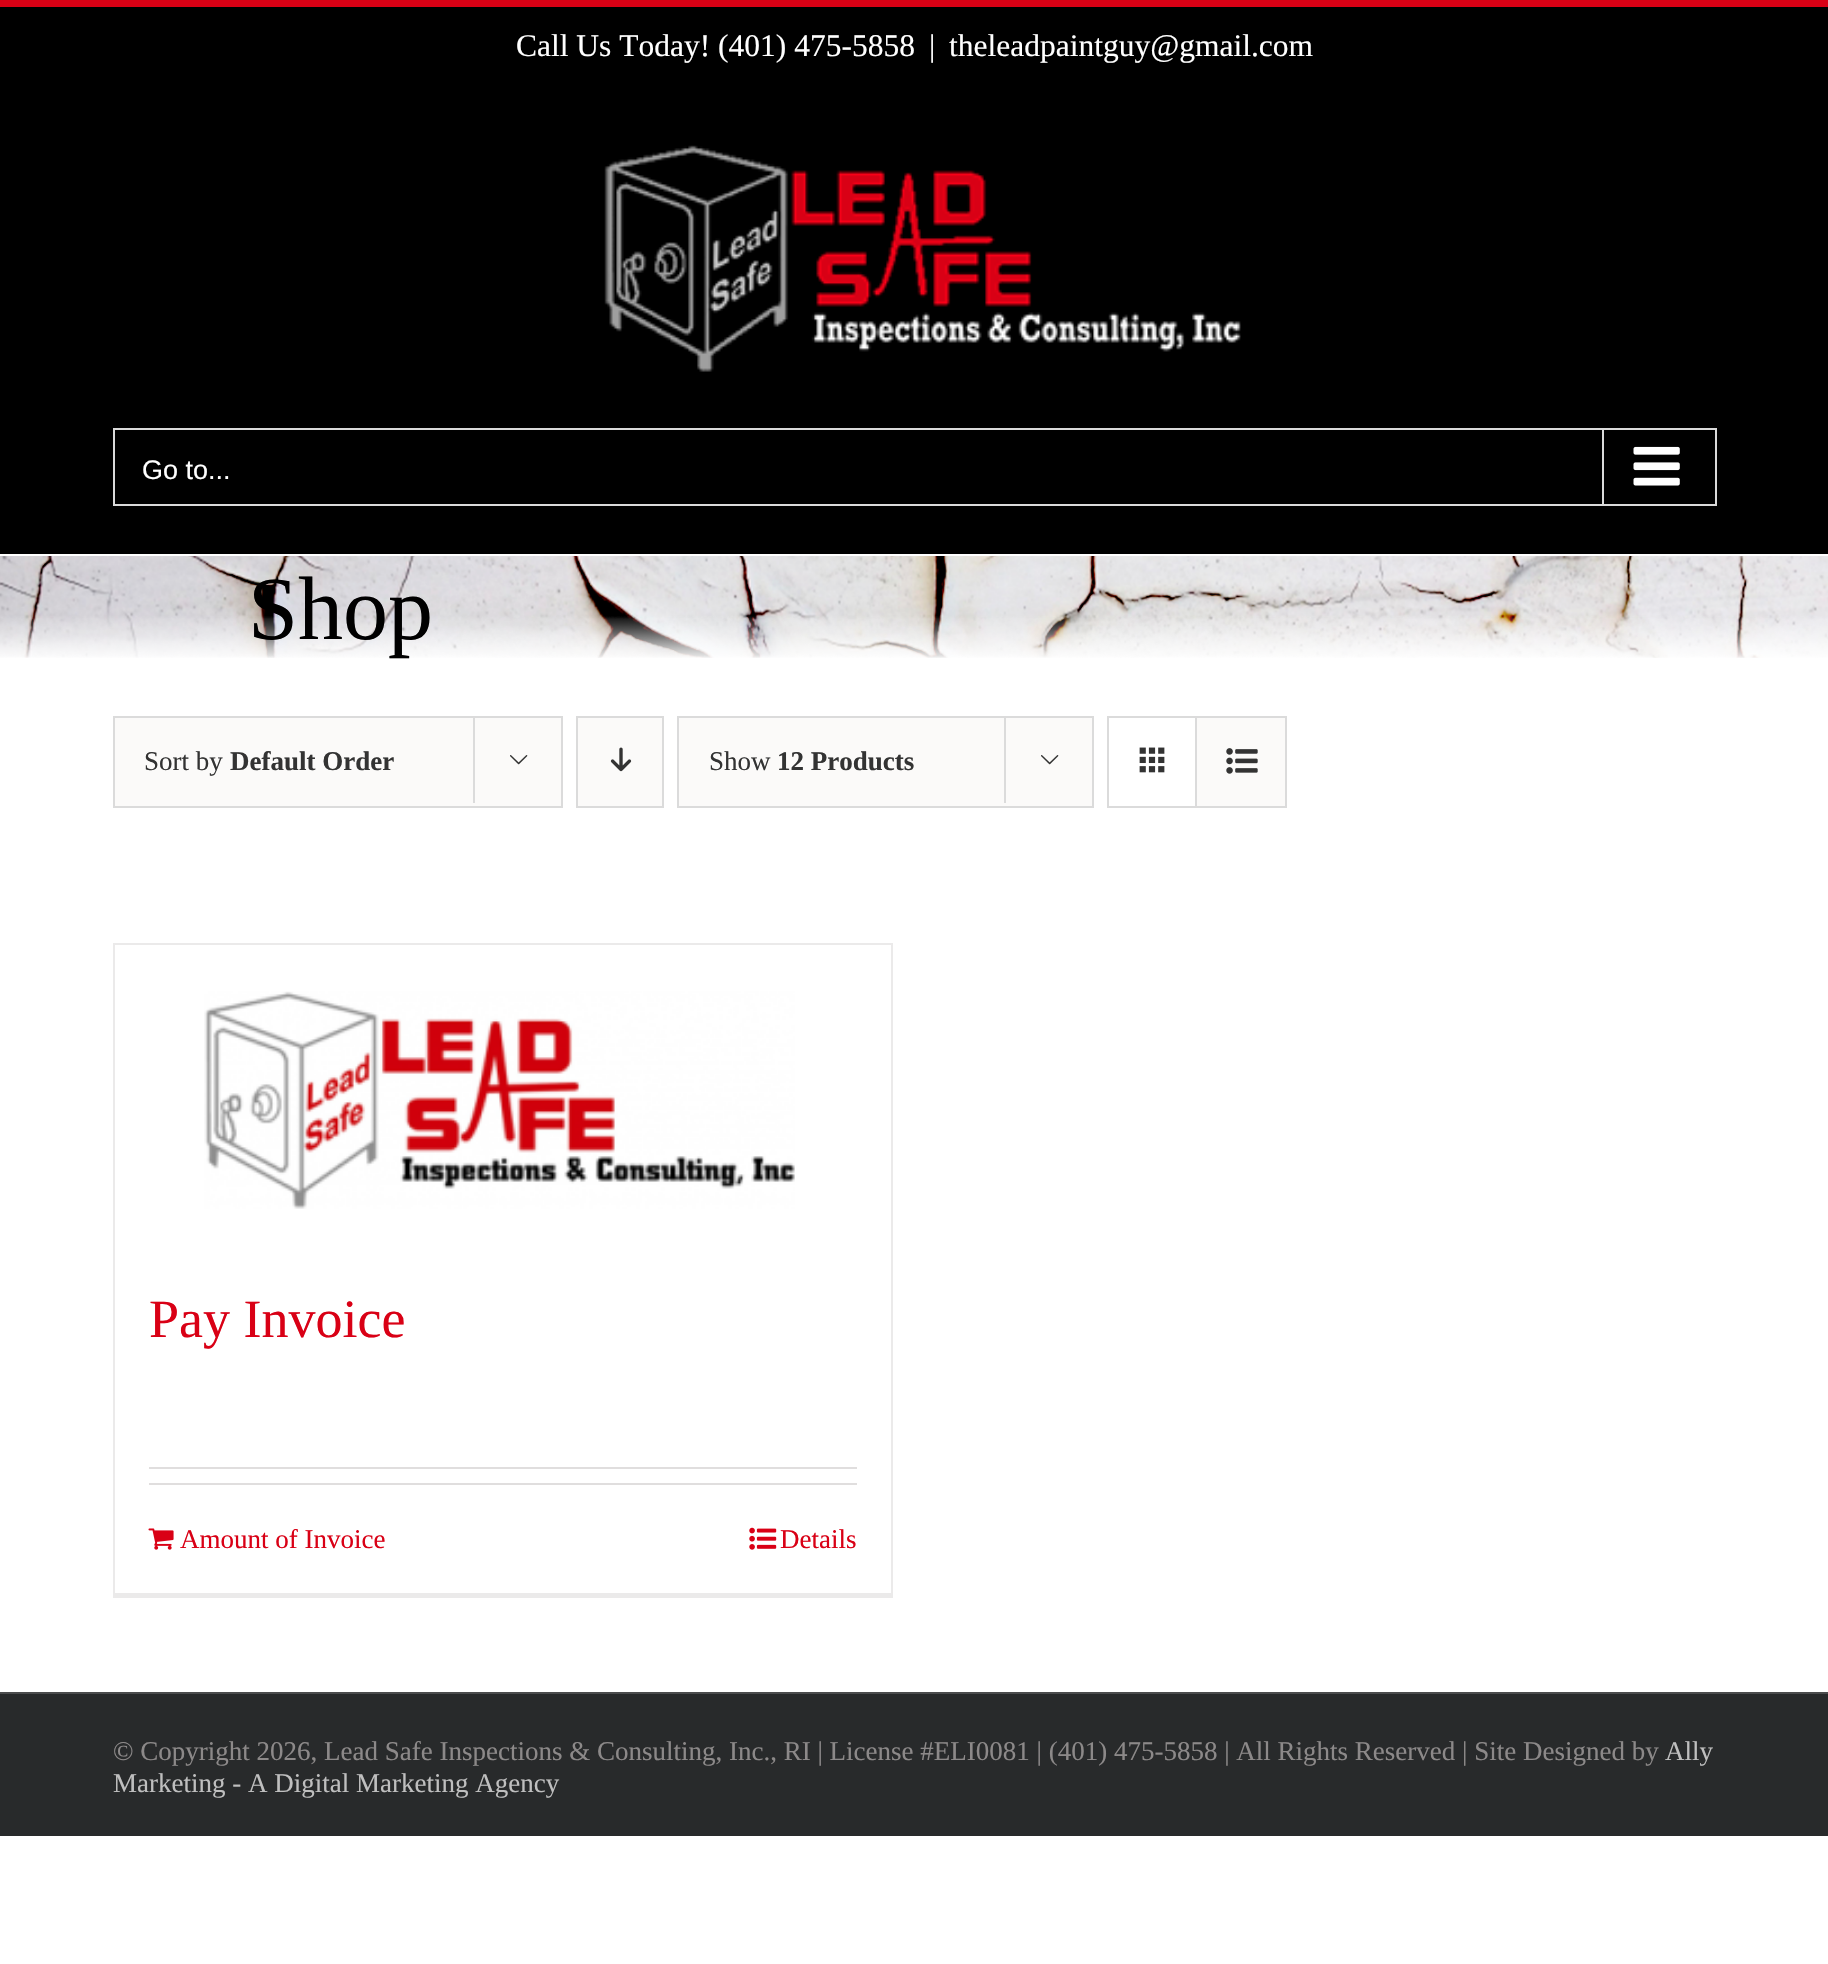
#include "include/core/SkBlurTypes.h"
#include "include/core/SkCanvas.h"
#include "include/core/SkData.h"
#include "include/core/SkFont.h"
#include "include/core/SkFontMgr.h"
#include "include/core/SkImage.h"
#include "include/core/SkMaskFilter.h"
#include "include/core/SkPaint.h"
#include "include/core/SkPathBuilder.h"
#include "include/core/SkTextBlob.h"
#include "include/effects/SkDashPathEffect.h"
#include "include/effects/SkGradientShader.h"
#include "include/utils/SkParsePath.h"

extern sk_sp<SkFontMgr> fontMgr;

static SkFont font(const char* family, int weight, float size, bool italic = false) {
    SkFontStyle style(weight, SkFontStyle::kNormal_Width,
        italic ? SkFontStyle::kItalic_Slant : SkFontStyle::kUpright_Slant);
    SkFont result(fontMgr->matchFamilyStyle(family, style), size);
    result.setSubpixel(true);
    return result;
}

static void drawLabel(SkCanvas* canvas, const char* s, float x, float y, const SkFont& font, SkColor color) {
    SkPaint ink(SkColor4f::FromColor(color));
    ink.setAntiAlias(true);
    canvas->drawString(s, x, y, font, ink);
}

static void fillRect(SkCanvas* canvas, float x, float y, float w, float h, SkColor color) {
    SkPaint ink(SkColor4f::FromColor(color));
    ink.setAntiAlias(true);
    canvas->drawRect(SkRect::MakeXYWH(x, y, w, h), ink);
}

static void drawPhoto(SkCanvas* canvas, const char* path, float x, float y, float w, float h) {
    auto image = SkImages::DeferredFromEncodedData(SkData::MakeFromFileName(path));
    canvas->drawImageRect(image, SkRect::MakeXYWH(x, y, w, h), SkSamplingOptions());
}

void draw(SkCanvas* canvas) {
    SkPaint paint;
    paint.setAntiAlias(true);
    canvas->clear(0xFFFFFFFF);
    fillRect(canvas, 0, 7, 1828, 547, 0xFF000000);
    fillRect(canvas, 0, 0, 1828, 7, 0xFFD90015);
    SkFont font1 = font("Liberation Serif", 400, 31.5f);
    drawLabel(canvas, "Call Us Today! (401) 475-5858", 516, 56, font1, 0xFFFFFFFF);
    drawLabel(canvas, "|", 929, 56, font1, 0xFFFFFFFF);
    drawLabel(canvas, "theleadpaintguy@gmail.com", 949, 56, font1, 0xFFFFFFFF);
    drawPhoto(canvas, "assets/img1.png", 604, 145, 637, 227);
    paint.setStroke(true);
    paint.setStrokeWidth(2);
    paint.setColor(0xFFDADADA);
    canvas->drawRect(SkRect::MakeXYWH(114, 429, 1602, 76), paint);
    SkFont font2 = font("Liberation Sans", 400, 27);
    drawLabel(canvas, "Go to...", 142, 479, font2, 0xFFFFFFFF);
    fillRect(canvas, 1602, 430, 2, 74, 0xFFDADADA);
    drawPhoto(canvas, "assets/img2.png", 1633, 446, 47, 40);
    drawPhoto(canvas, "assets/img3.png", 0, 556, 1828, 102);
    SkFont font3 = font("Liberation Serif", 400, 90);
    drawLabel(canvas, "Shop", 248, 639, font3, 0xFF000000);
    paint.setStroke(false);
    paint.setColor(0xFFFBFAF9);
    canvas->drawRect(SkRect::MakeXYWH(114, 717, 448, 90), paint);
    paint.setStroke(true);
    paint.setColor(0xFFDBDBDB);
    canvas->drawRect(SkRect::MakeXYWH(114, 717, 448, 90), paint);
    SkFont font4 = font("Liberation Serif", 400, 27);
    drawLabel(canvas, "Sort by", 144, 770, font4, 0xFF333333);
    SkFont font5 = font("Liberation Serif", 700, 27);
    drawLabel(canvas, "Default Order", 230, 770, font5, 0xFF333333);
    fillRect(canvas, 473, 716, 2, 87, 0xFFDBDBDB);
    drawPhoto(canvas, "assets/img4.png", 510, 755, 18, 10);
    paint.setStroke(false);
    paint.setColor(0xFFFBFAF9);
    canvas->drawRect(SkRect::MakeXYWH(577, 717, 86, 90), paint);
    paint.setStroke(true);
    paint.setColor(0xFFDBDBDB);
    canvas->drawRect(SkRect::MakeXYWH(577, 717, 86, 90), paint);
    drawPhoto(canvas, "assets/img5.png", 610, 747, 22, 25);
    paint.setStroke(false);
    paint.setColor(0xFFFBFAF9);
    canvas->drawRect(SkRect::MakeXYWH(678, 717, 415, 90), paint);
    paint.setStroke(true);
    paint.setColor(0xFFDBDBDB);
    canvas->drawRect(SkRect::MakeXYWH(678, 717, 415, 90), paint);
    drawLabel(canvas, "Show", 709, 770, font4, 0xFF333333);
    drawLabel(canvas, "12 Products", 777, 770, font5, 0xFF333333);
    fillRect(canvas, 1004, 716, 2, 87, 0xFFDBDBDB);
    drawPhoto(canvas, "assets/img4.png", 1041, 755, 18, 10);
    canvas->drawRect(SkRect::MakeXYWH(1108, 717, 178, 90), paint);
    fillRect(canvas, 1195, 718, 2, 88, 0xFFDBDBDB);
    drawPhoto(canvas, "assets/img6.png", 1139, 747, 26, 26);
    fillRect(canvas, 1197, 718, 88, 88, 0xFFFBFAF9);
    drawPhoto(canvas, "assets/img7.png", 1226, 748, 32, 26);
    fillRect(canvas, 113, 943, 780, 2, 0xFFEBEAEA);
    fillRect(canvas, 891, 943, 2, 655, 0xFFEBEAEA);
    fillRect(canvas, 113, 1593, 780, 5, 0xFFEBEAEA);
    fillRect(canvas, 113, 943, 2, 655, 0xFFEBEAEA);
    drawPhoto(canvas, "assets/img8.png", 204, 991, 591, 218);
    SkFont font6 = font("Liberation Serif", 400, 54);
    drawLabel(canvas, "Pay Invoice", 149, 1337, font6, 0xFFD90015);
    fillRect(canvas, 149, 1467, 708, 2, 0xFFE0DEDE);
    fillRect(canvas, 149, 1483, 708, 2, 0xFFE0DEDE);
    drawPhoto(canvas, "assets/img9.png", 148, 1528, 26, 22);
    drawLabel(canvas, "Amount of Invoice", 180, 1548, font4, 0xFFD90015);
    drawPhoto(canvas, "assets/img10.png", 749, 1527, 28, 23);
    drawLabel(canvas, "Details", 780, 1548, font4, 0xFFD90015);
    fillRect(canvas, 0, 1694, 1828, 142, 0xFF282A2B);
    fillRect(canvas, 0, 1692, 1828, 2, 0xFF4B4C4D);
    drawLabel(canvas, "© Copyright 2026, Lead Safe Inspections & Consulting, Inc., RI | License #ELI0081 | (401) 475-5858 | All Rights Reserved | Site Designed by", 113, 1760, font4, 0xFF8C8989);
    drawLabel(canvas, "Ally", 1665, 1760, font4, 0xFFBFBFBF);
    drawLabel(canvas, "Marketing - A Digital Marketing Agency", 113, 1792, font4, 0xFFBFBFBF);
}
